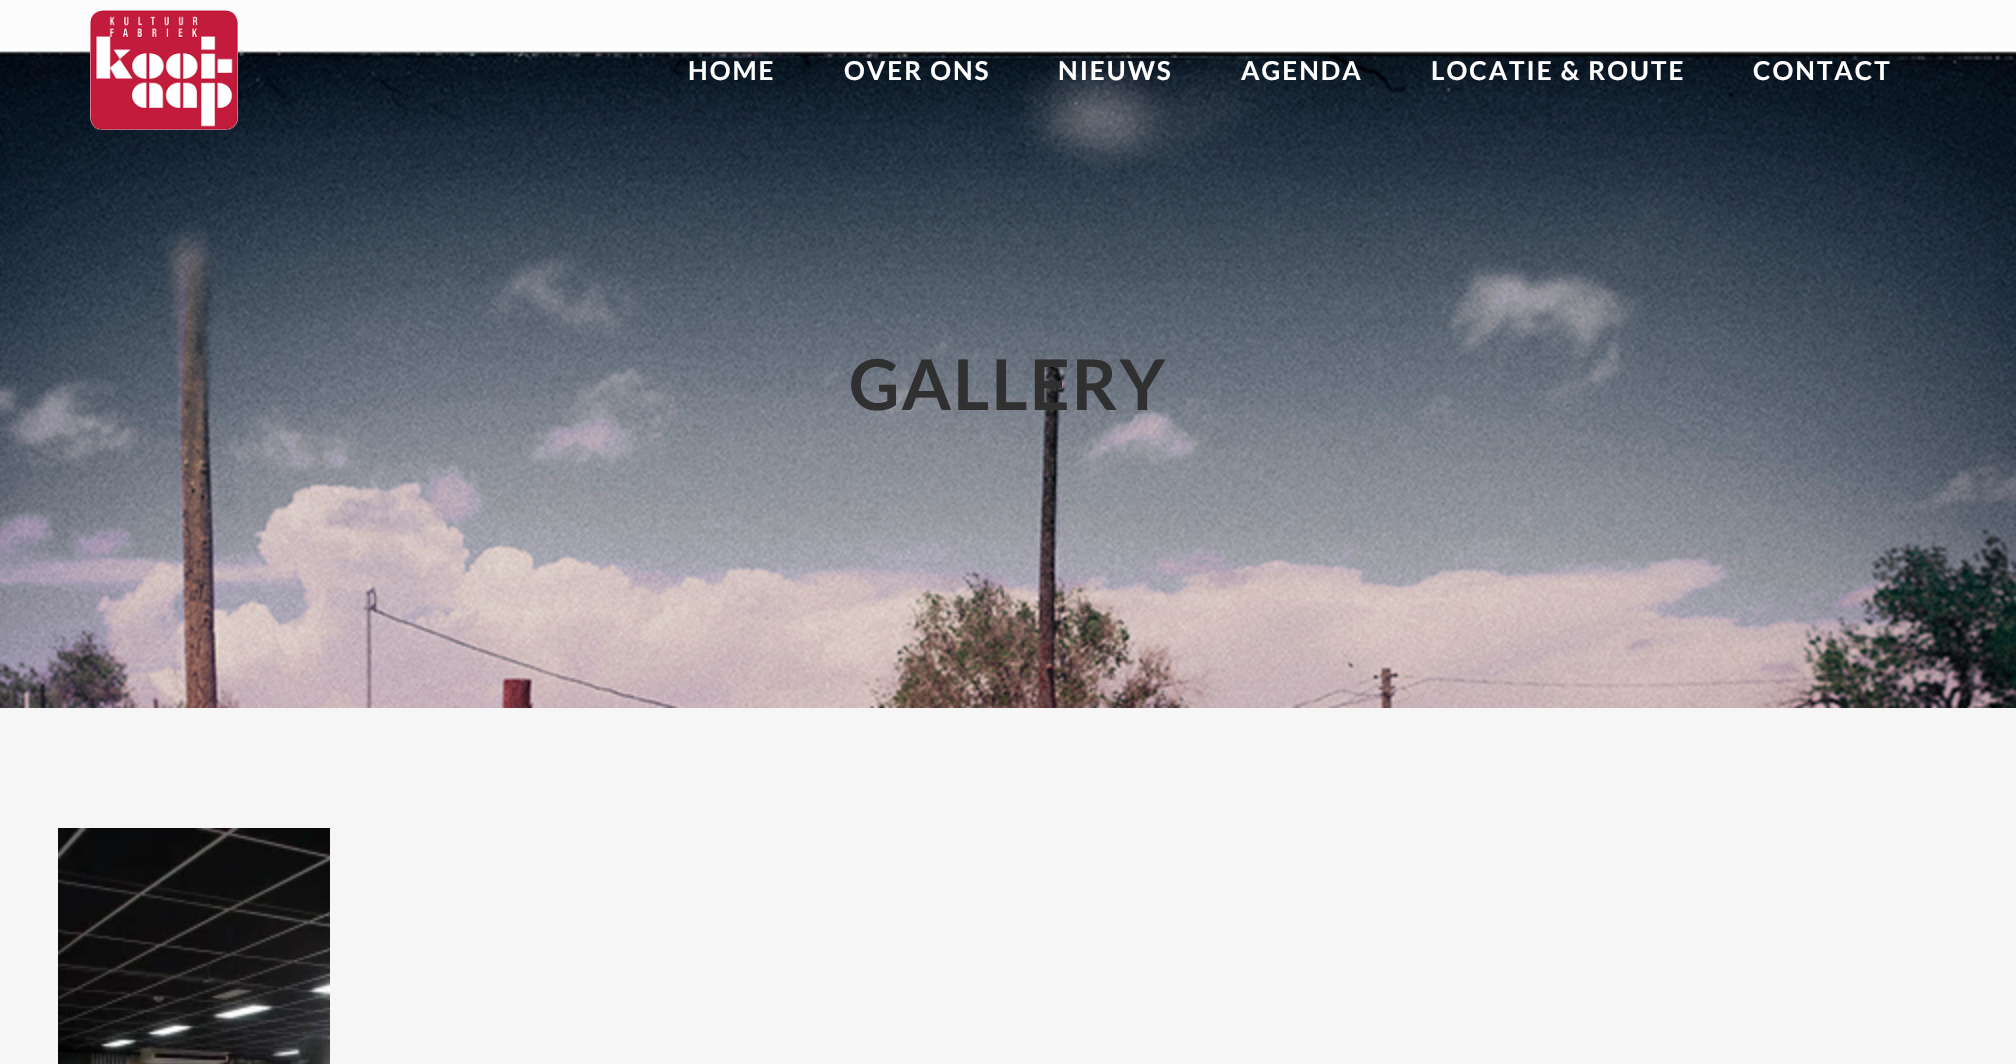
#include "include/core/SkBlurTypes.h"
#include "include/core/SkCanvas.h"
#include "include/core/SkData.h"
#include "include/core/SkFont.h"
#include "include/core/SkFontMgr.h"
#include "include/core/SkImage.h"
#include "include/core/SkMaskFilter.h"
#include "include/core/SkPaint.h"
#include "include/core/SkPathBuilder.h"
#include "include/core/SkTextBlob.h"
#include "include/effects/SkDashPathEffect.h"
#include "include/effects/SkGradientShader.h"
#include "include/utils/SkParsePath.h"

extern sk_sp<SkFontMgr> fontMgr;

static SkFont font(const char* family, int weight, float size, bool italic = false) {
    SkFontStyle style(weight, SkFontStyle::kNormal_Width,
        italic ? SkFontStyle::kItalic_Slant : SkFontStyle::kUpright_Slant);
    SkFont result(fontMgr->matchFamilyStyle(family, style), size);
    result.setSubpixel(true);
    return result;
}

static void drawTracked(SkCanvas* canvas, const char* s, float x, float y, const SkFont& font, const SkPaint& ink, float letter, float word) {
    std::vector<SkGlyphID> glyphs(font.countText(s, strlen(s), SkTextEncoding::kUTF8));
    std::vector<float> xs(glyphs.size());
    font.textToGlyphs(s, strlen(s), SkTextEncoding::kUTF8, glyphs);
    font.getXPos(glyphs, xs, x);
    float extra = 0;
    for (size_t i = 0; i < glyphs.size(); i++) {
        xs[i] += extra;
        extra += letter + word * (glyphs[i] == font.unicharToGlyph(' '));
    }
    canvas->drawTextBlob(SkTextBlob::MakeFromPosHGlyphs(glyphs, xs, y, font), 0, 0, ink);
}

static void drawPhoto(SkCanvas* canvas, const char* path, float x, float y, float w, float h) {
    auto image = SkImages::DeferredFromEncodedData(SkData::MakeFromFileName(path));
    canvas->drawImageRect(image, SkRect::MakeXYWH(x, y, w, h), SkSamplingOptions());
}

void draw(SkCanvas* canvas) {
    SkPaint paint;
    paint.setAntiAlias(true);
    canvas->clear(0xFFF6F6F6);
    drawPhoto(canvas, "assets/img2.png", 0, 0, 2016, 708);
    drawPhoto(canvas, "assets/img1.png", 90, 10, 148, 120);
    SkFont font1 = font("Lato", 700, 26);
    paint.setColor(0xFFFFFFFF);
    drawTracked(canvas, "HOME", 688, 80, font1, paint, 2, 0);
    drawTracked(canvas, "OVER ONS", 844, 80, font1, paint, 2, 0);
    drawTracked(canvas, "NIEUWS", 1058, 80, font1, paint, 2, 0);
    drawTracked(canvas, "AGENDA", 1241, 80, font1, paint, 2, 0);
    drawTracked(canvas, "LOCATIE & ROUTE", 1431, 80, font1, paint, 2, 0);
    drawTracked(canvas, "CONTACT", 1753, 80, font1, paint, 2, 0);
    SkFont font2 = font("Lato", 700, 70);
    paint.setColor(0xFF303030);
    drawTracked(canvas, "GALLERY", 849, 410, font2, paint, 2, 0);
    drawPhoto(canvas, "assets/img3.png", 58, 828, 272, 236);
}
